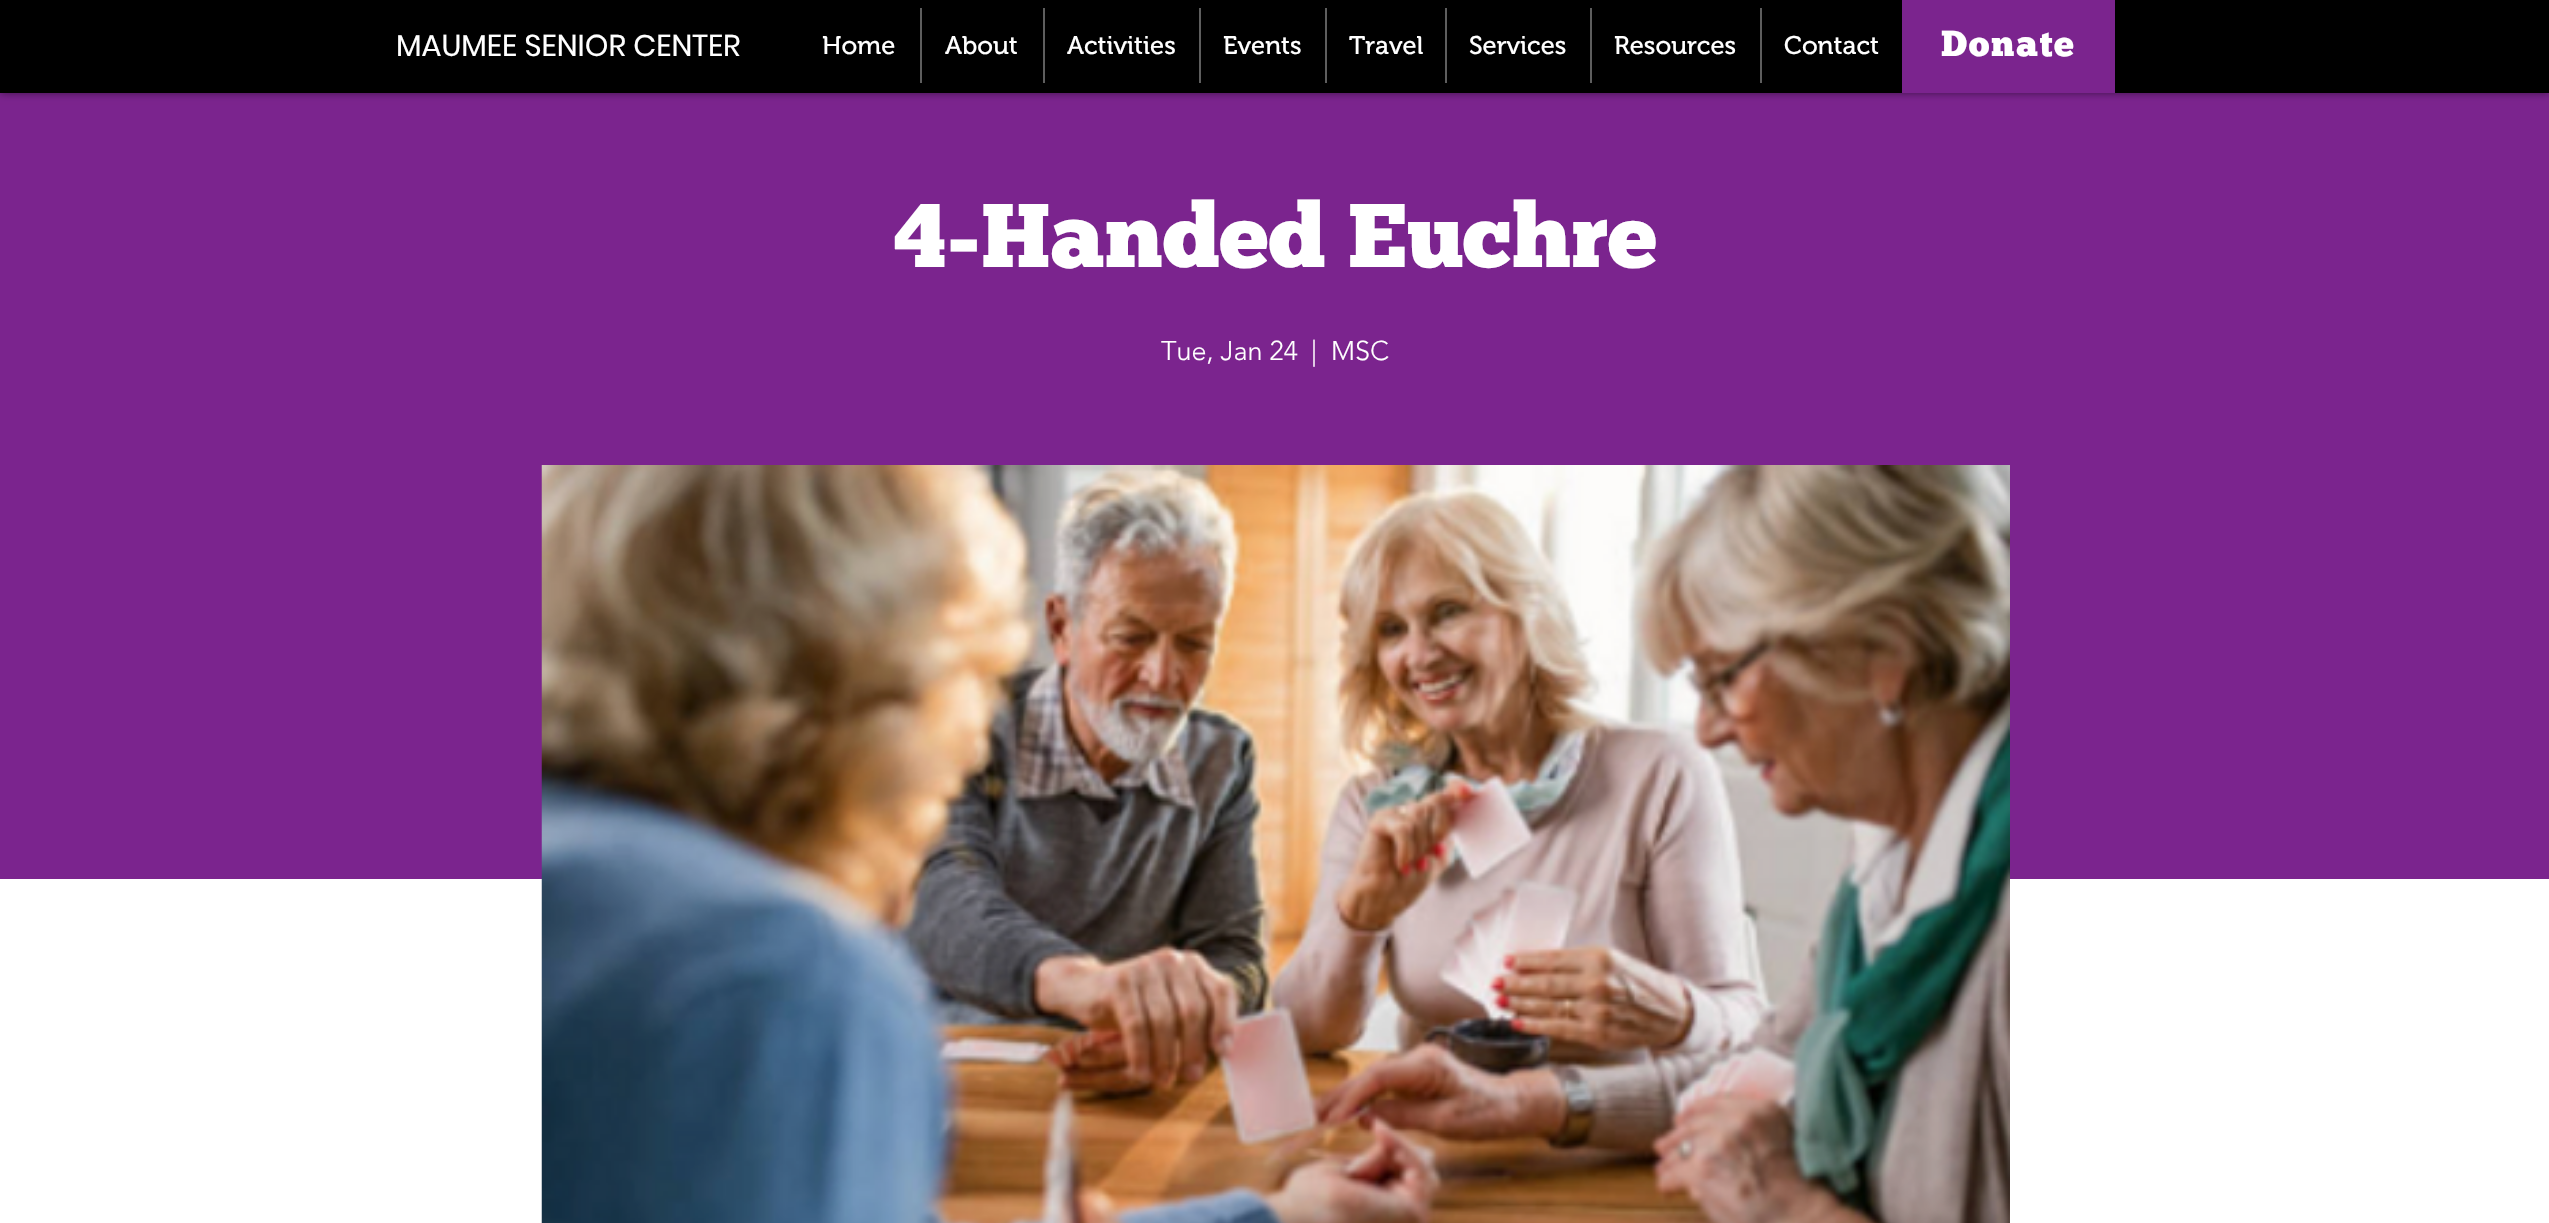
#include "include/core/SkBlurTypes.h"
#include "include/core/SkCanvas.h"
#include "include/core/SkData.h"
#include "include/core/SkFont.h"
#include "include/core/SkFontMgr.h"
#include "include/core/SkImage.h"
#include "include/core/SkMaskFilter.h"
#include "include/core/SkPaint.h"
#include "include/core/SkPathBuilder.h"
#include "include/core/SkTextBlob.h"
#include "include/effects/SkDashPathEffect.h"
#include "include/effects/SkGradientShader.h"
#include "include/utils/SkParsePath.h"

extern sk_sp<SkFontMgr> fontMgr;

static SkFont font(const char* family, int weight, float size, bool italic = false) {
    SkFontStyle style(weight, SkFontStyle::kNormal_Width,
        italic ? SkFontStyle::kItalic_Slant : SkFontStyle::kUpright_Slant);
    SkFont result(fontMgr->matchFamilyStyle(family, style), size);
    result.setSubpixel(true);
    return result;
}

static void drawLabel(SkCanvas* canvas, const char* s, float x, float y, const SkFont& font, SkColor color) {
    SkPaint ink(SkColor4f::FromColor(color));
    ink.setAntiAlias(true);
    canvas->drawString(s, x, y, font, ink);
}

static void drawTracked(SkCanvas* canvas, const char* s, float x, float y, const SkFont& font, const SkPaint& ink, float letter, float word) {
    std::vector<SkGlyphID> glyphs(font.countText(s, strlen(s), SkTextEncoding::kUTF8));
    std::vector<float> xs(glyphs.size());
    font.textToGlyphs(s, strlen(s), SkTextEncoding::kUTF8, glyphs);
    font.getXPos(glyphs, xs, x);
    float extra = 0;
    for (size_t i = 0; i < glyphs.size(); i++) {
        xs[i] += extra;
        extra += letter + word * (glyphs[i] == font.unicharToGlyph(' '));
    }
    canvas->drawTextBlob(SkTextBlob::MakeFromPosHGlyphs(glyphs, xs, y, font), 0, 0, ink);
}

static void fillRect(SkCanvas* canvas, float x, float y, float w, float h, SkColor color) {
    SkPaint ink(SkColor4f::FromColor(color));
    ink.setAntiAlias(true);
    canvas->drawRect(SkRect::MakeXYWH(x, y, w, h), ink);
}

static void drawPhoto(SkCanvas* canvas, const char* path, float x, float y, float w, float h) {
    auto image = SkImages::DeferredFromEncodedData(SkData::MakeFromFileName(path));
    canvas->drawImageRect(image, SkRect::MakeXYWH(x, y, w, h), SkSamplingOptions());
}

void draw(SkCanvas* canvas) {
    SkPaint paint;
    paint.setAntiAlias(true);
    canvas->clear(0xFFFFFFFF);
    fillRect(canvas, 0, 93, 2549, 786, 0xFF7B248E);
    paint.setColor(0x80000000);
    paint.setMaskFilter(SkMaskFilter::MakeBlur(kNormal_SkBlurStyle, 4));
    canvas->drawRect(SkRect::MakeXYWH(0, 0, 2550, 93), paint);
    paint.setMaskFilter(nullptr);
    fillRect(canvas, 0, 0, 2549, 93, 0xFF000000);
    SkFont font1 = font("Poppins", 400, 30);
    drawLabel(canvas, "MAUMEE SENIOR CENTER", 396, 56, font1, 0xFFFFFFFF);
    SkFont font2 = font("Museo", 400, 25.5f);
    drawLabel(canvas, "Home", 822, 54, font2, 0xFFFFFFFF);
    fillRect(canvas, 920, 8, 2, 75, 0xFF5E5E5E);
    drawLabel(canvas, "About", 945, 54, font2, 0xFFFFFFFF);
    fillRect(canvas, 1043, 8, 2, 75, 0xFF5E5E5E);
    drawLabel(canvas, "Activities", 1067, 54, font2, 0xFFFFFFFF);
    fillRect(canvas, 1199, 8, 2, 75, 0xFF5E5E5E);
    drawLabel(canvas, "Events", 1223, 54, font2, 0xFFFFFFFF);
    fillRect(canvas, 1325, 8, 2, 75, 0xFF5E5E5E);
    drawLabel(canvas, "Travel", 1349, 54, font2, 0xFFFFFFFF);
    fillRect(canvas, 1445, 8, 2, 75, 0xFF5E5E5E);
    drawLabel(canvas, "Services", 1469, 54, font2, 0xFFFFFFFF);
    fillRect(canvas, 1590, 8, 2, 75, 0xFF5E5E5E);
    drawLabel(canvas, "Resources", 1614, 54, font2, 0xFFFFFFFF);
    fillRect(canvas, 1760, 8, 2, 75, 0xFF5E5E5E);
    drawLabel(canvas, "Contact", 1784, 54, font2, 0xFFFFFFFF);
    fillRect(canvas, 1902, 0, 213, 93, 0xFF7B248E);
    SkFont font3 = font("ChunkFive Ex", 400, 36);
    paint.setColor(0xFFFFFFFF);
    drawTracked(canvas, "Donate", 1941, 56, font3, paint, 1.75f, 0);
    SkFont font4 = font("ChunkFive Ex", 400, 90);
    drawLabel(canvas, "4-Handed Euchre", 894, 267, font4, 0xFFFFFFFF);
    SkFont font5 = font("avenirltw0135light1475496", 300, 27);
    drawLabel(canvas, "Tue, Jan 24", 1161, 360, font5, 0xFFFFFFFF);
    drawLabel(canvas, "|", 1311, 360, font5, 0xFFFFFFFF);
    drawLabel(canvas, "MSC", 1331, 360, font5, 0xFFFFFFFF);
    drawPhoto(canvas, "assets/img1.png", 541, 465, 1469, 758);
}
